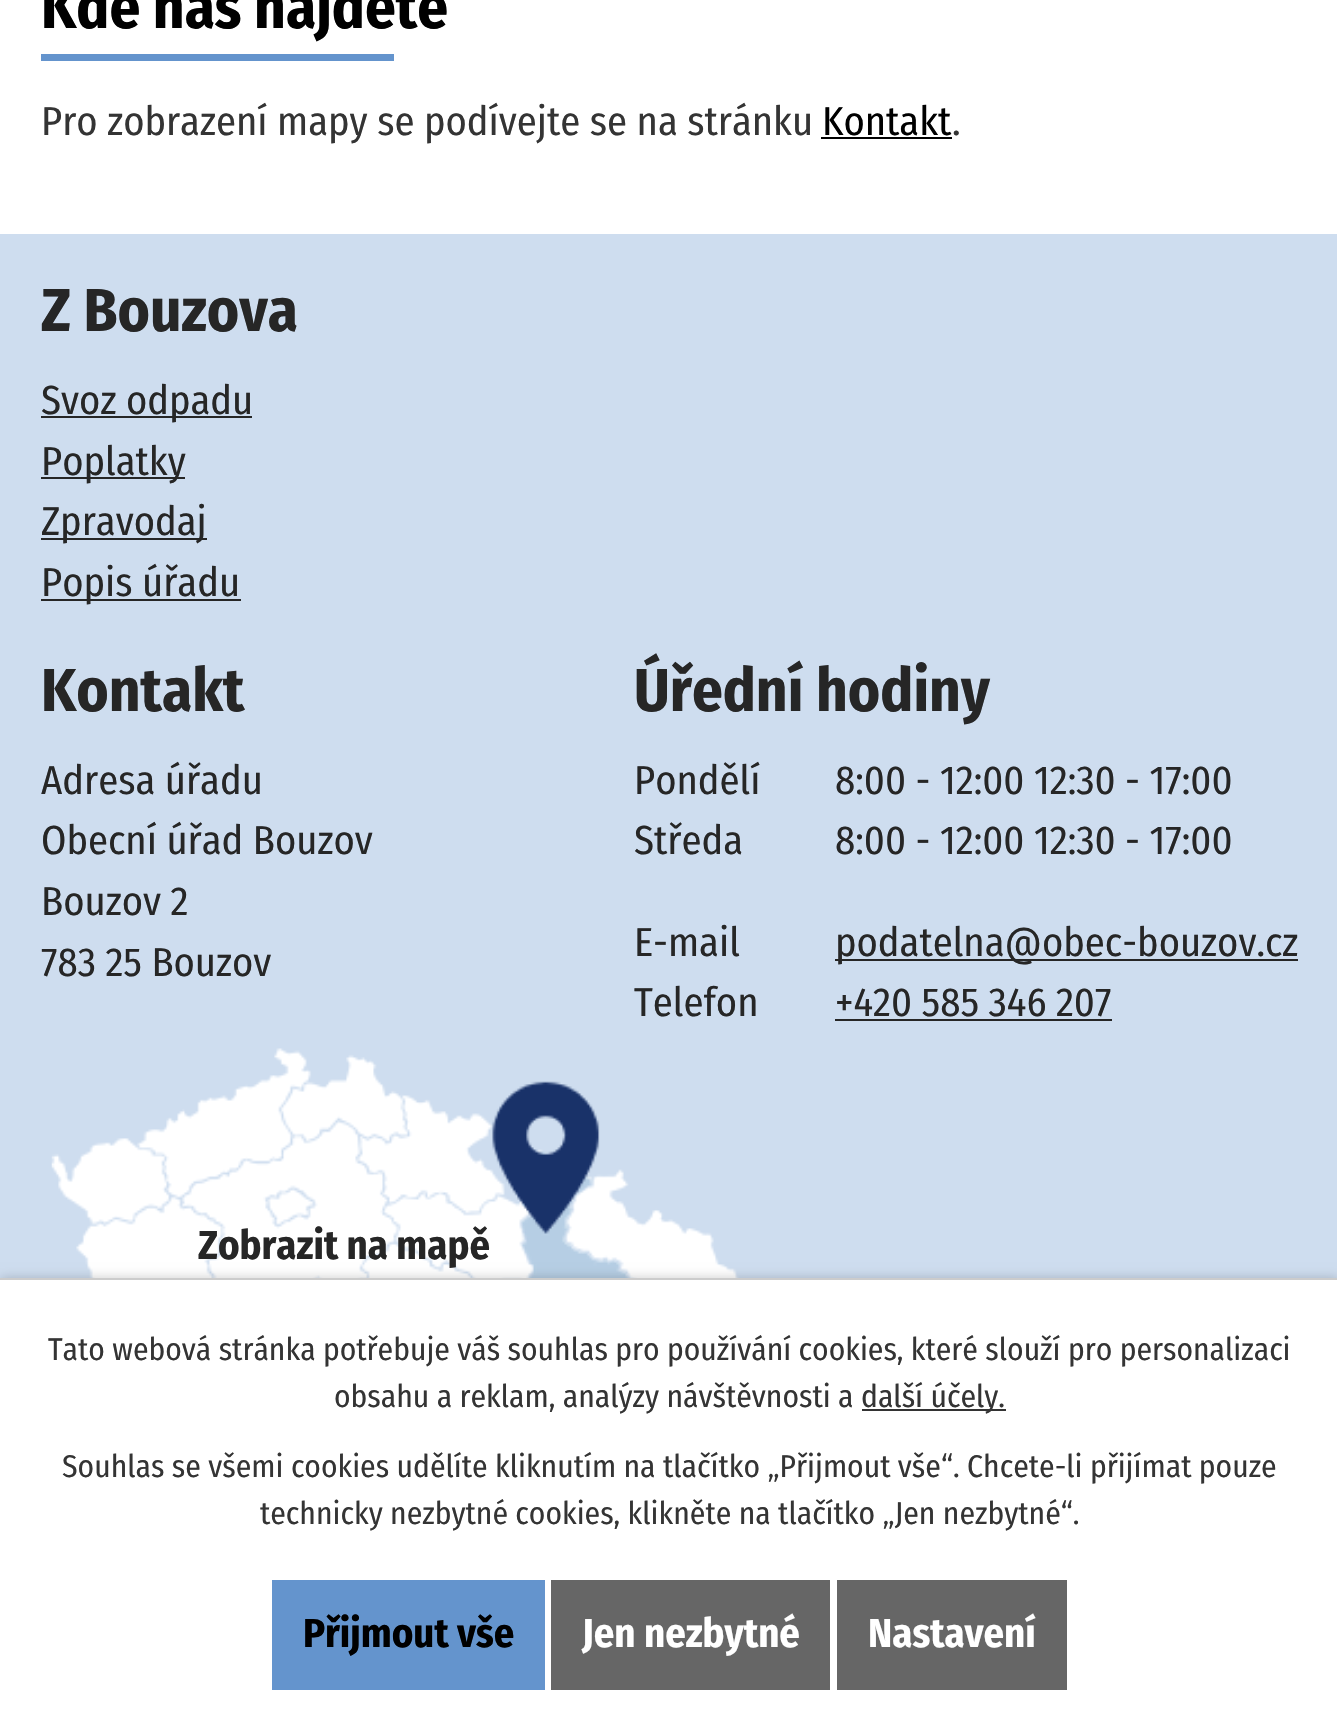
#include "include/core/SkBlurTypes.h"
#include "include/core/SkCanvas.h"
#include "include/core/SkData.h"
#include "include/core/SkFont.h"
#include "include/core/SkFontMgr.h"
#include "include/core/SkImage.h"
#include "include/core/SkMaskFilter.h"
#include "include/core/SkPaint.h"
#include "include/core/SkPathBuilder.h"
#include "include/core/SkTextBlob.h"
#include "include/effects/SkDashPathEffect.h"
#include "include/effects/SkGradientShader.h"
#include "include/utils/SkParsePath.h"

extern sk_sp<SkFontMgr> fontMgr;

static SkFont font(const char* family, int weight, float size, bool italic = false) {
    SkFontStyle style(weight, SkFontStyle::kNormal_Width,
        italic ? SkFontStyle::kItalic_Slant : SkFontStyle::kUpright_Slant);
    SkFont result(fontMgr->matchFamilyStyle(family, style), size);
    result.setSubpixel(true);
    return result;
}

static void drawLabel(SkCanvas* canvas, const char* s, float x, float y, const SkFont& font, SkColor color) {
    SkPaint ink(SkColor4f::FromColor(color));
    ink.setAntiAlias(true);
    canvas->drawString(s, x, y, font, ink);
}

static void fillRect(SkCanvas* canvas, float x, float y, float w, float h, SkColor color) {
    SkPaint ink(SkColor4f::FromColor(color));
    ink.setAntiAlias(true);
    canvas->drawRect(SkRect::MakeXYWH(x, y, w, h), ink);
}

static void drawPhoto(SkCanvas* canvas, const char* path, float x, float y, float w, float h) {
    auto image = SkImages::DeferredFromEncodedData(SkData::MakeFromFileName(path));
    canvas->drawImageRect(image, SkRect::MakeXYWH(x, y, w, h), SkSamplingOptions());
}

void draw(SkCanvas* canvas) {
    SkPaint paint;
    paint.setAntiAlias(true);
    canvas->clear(0xFFFFFFFF);
    SkFont font1 = font("Fira Sans Condensed", 700, 60.75f);
    drawLabel(canvas, "Kde nás najdete", 41, 28, font1, 0xFF000000);
    fillRect(canvas, 41, 54, 353, 7, 0xFF6494CD);
    SkFont font2 = font("Fira Sans Condensed", 400, 40.5f);
    drawLabel(canvas, "Pro zobrazení mapy se podívejte se na stránku", 41, 135, font2, 0xFF343434);
    drawLabel(canvas, "Kontakt", 822, 135, font2, 0xFF000000);
    fillRect(canvas, 821, 137, 131, 2, 0xFF000000);
    drawLabel(canvas, ".", 952, 135, font2, 0xFF343434);
    fillRect(canvas, 0, 234, 1337, 1044, 0xFFCEDDEF);
    drawLabel(canvas, "Z Bouzova", 41, 331, font1, 0xFF262626);
    fillRect(canvas, 41, 416, 211, 2, 0xFF262626);
    drawLabel(canvas, "Svoz odpadu", 41, 414, font2, 0xFF262626);
    fillRect(canvas, 41, 477, 144, 2, 0xFF262626);
    drawLabel(canvas, "Poplatky", 41, 475, font2, 0xFF262626);
    fillRect(canvas, 41, 538, 166, 2, 0xFF262626);
    drawLabel(canvas, "Zpravodaj", 41, 535, font2, 0xFF262626);
    fillRect(canvas, 41, 599, 200, 2, 0xFF262626);
    drawLabel(canvas, "Popis úřadu", 41, 596, font2, 0xFF262626);
    drawLabel(canvas, "Kontakt", 41, 711, font1, 0xFF262626);
    drawLabel(canvas, "Adresa úřadu", 41, 794, font2, 0xFF262626);
    drawLabel(canvas, "Obecní úřad Bouzov", 41, 854, font2, 0xFF262626);
    drawLabel(canvas, "Bouzov 2", 41, 915, font2, 0xFF262626);
    drawLabel(canvas, "783 25 Bouzov", 41, 976, font2, 0xFF262626);
    drawLabel(canvas, "Úřední hodiny", 634, 711, font1, 0xFF262626);
    drawLabel(canvas, "Pondělí", 634, 794, font2, 0xFF262626);
    drawLabel(canvas, "8:00 - 12:00 12:30 - 17:00", 835, 794, font2, 0xFF262626);
    drawLabel(canvas, "Středa", 634, 854, font2, 0xFF262626);
    drawLabel(canvas, "8:00 - 12:00 12:30 - 17:00", 835, 854, font2, 0xFF262626);
    drawLabel(canvas, "E-mail", 634, 956, font2, 0xFF262626);
    fillRect(canvas, 835, 959, 463, 2, 0xFF262626);
    drawLabel(canvas, "podatelna@obec-bouzov.cz", 835, 956, font2, 0xFF262626);
    drawLabel(canvas, "Telefon", 634, 1016, font2, 0xFF262626);
    drawLabel(canvas, "+420 585 346 207", 835, 1016, font2, 0xFF262626);
    fillRect(canvas, 835, 1019, 277, 2, 0xFF262626);
    drawPhoto(canvas, "assets/img1.png", 51, 1048, 688, 230);
    SkFont font3 = font("Fira Sans Condensed", 700, 40.5f);
    drawLabel(canvas, "Zobrazit na mapě", 198, 1259, font3, 0xFF262626);
    paint.setColor(0x33000000);
    paint.setMaskFilter(SkMaskFilter::MakeBlur(kNormal_SkBlurStyle, 5.5f));
    canvas->drawRect(SkRect::MakeXYWH(0, 1278, 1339, 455), paint);
    paint.setMaskFilter(nullptr);
    fillRect(canvas, 0, 1280, 1337, 452, 0xFFFFFFFF);
    fillRect(canvas, 0, 1278, 1337, 2, 0xFFCCCCCC);
    SkFont font4 = font("Fira Sans Condensed", 400, 31.5f);
    drawLabel(canvas, "Tato webová stránka potřebuje váš souhlas pro používání cookies, které slouží pro personalizaci", 48, 1360, font4, 0xFF343434);
    drawLabel(canvas, "obsahu a reklam, analýzy návštěvnosti a", 334, 1407, font4, 0xFF343434);
    fillRect(canvas, 862, 1409, 144, 2, 0xFF333333);
    drawLabel(canvas, "další účely.", 861, 1407, font4, 0xFF343434);
    drawLabel(canvas, "Souhlas se všemi cookies udělíte kliknutím na tlačítko „Přijmout vše“. Chcete-li přijímat pouze", 62, 1477, font4, 0xFF343434);
    drawLabel(canvas, "technicky nezbytné cookies, klikněte na tlačítko „Jen nezbytné“.", 260, 1524, font4, 0xFF343434);
    fillRect(canvas, 272, 1580, 273, 110, 0xFF6494CD);
    drawLabel(canvas, "Přijmout vše", 303, 1647, font3, 0xFF000000);
    fillRect(canvas, 551, 1580, 279, 110, 0xFF666666);
    drawLabel(canvas, "Jen nezbytné", 582, 1647, font3, 0xFFFFFFFF);
    fillRect(canvas, 837, 1580, 230, 110, 0xFF666666);
    drawLabel(canvas, "Nastavení", 868, 1647, font3, 0xFFFFFFFF);
}
